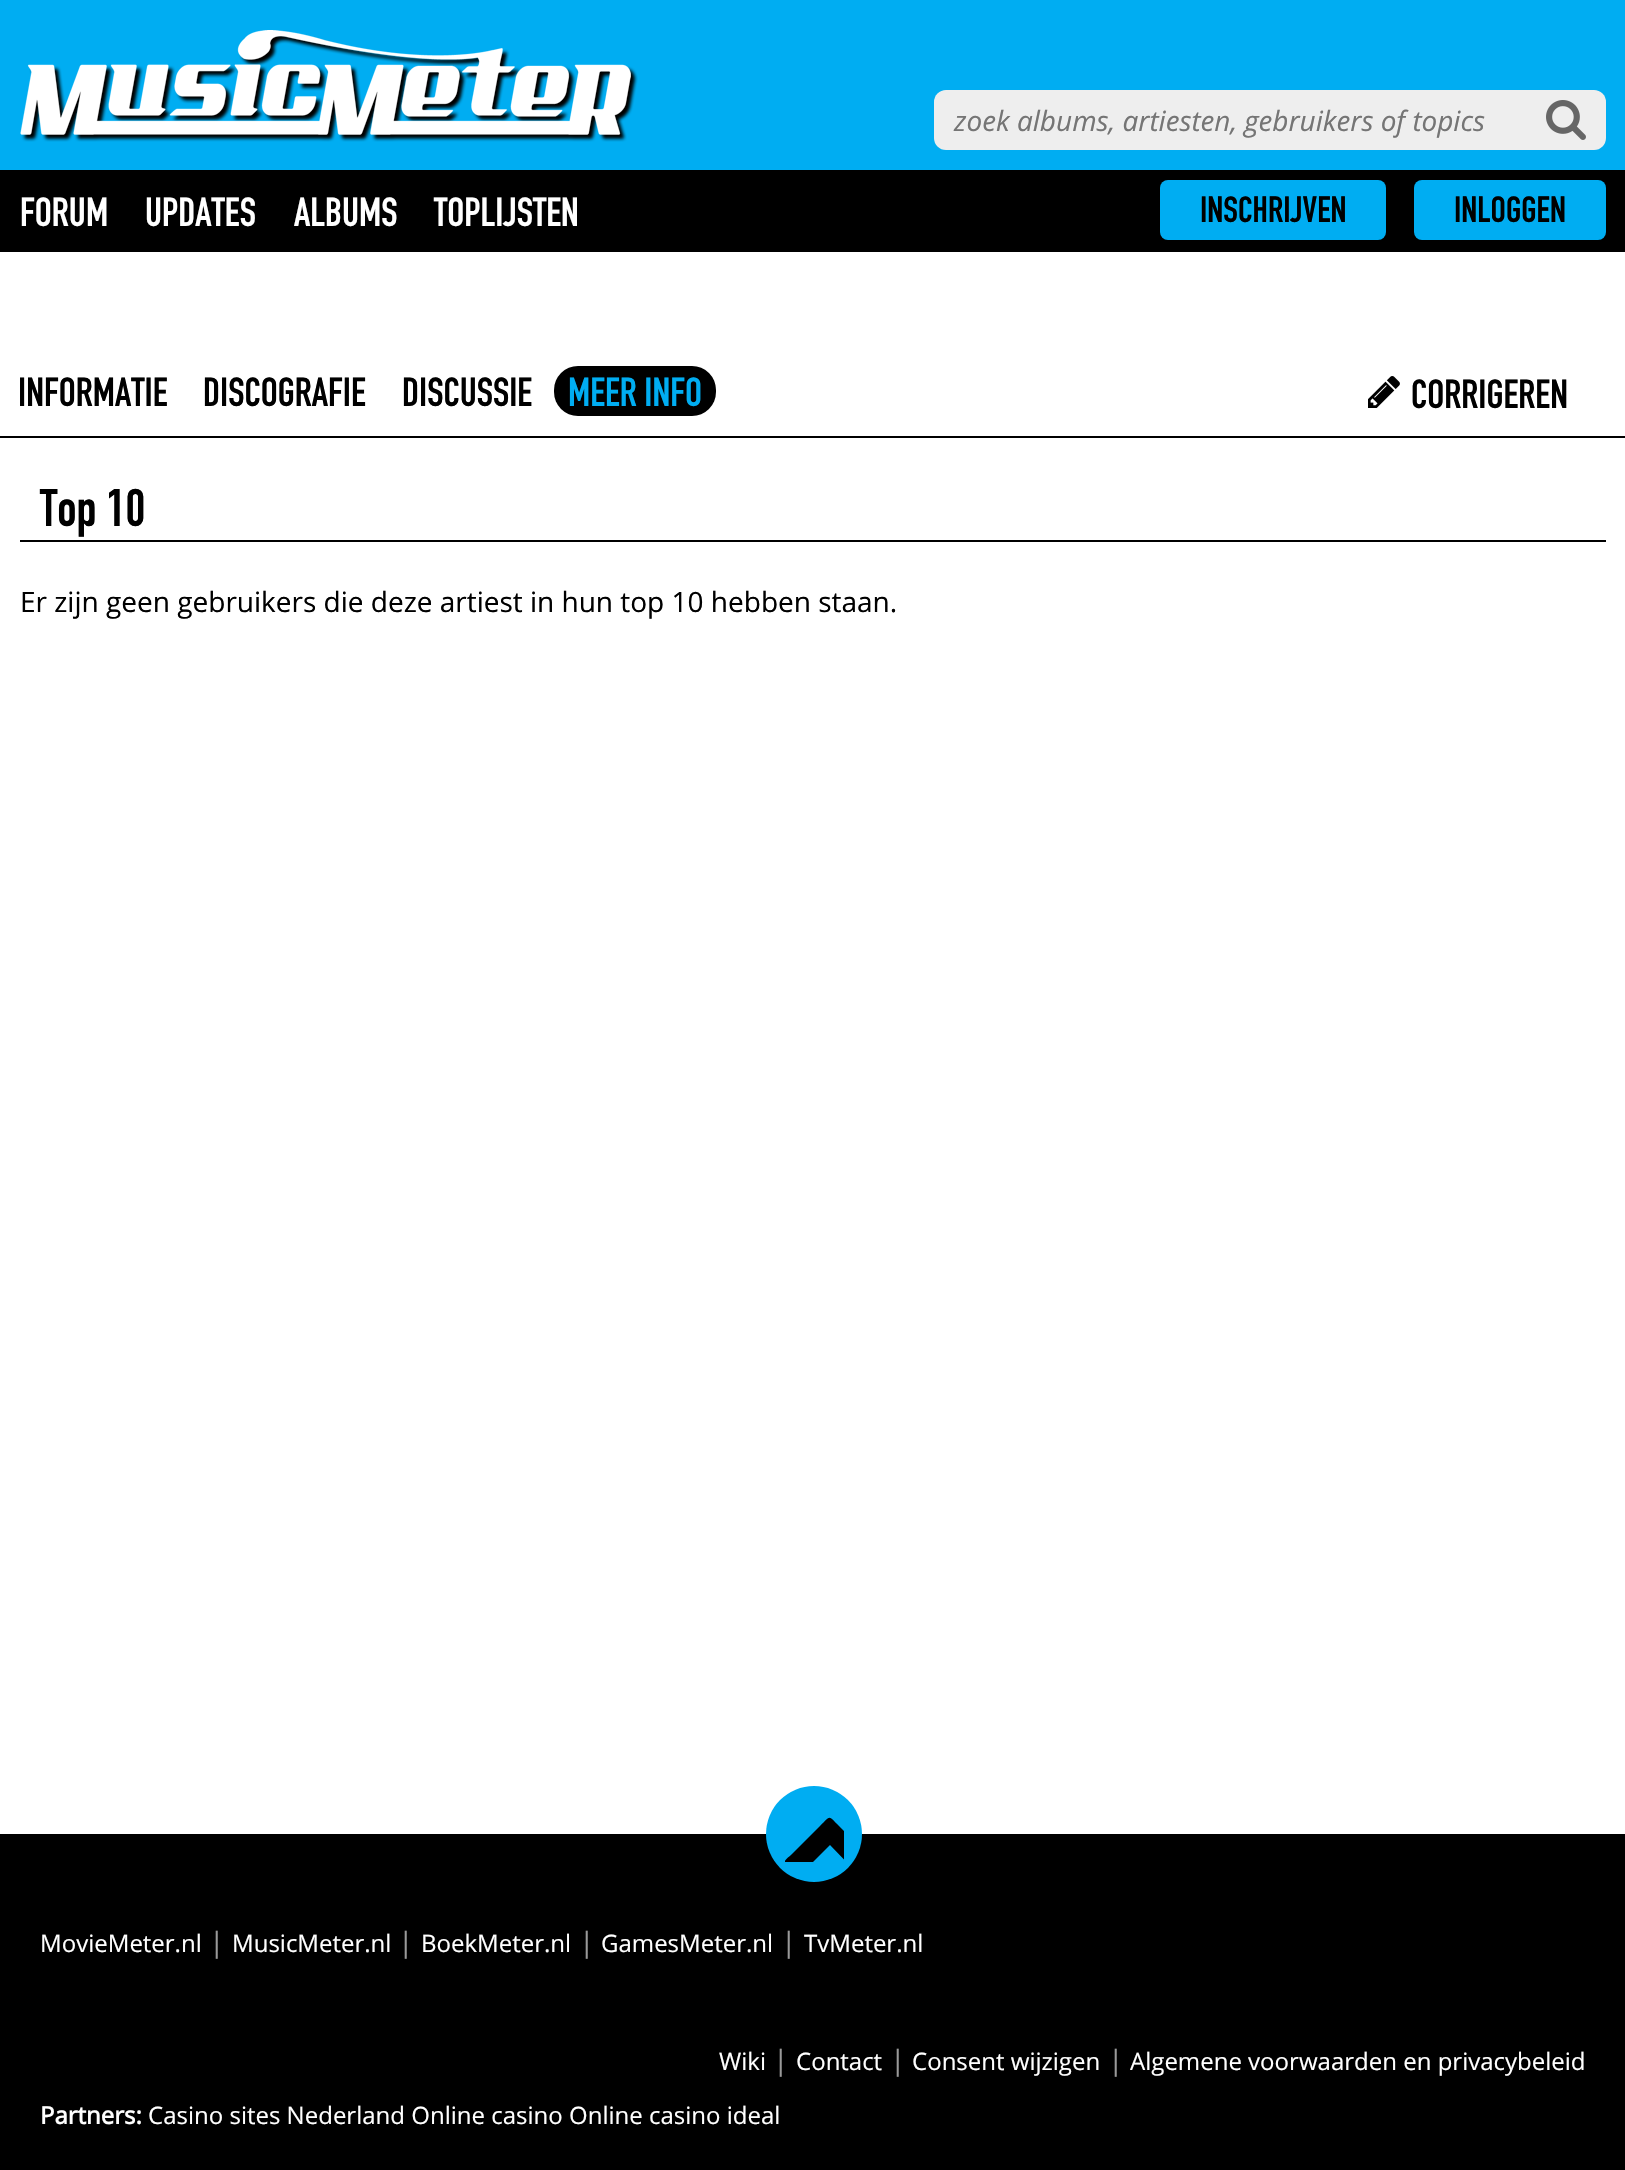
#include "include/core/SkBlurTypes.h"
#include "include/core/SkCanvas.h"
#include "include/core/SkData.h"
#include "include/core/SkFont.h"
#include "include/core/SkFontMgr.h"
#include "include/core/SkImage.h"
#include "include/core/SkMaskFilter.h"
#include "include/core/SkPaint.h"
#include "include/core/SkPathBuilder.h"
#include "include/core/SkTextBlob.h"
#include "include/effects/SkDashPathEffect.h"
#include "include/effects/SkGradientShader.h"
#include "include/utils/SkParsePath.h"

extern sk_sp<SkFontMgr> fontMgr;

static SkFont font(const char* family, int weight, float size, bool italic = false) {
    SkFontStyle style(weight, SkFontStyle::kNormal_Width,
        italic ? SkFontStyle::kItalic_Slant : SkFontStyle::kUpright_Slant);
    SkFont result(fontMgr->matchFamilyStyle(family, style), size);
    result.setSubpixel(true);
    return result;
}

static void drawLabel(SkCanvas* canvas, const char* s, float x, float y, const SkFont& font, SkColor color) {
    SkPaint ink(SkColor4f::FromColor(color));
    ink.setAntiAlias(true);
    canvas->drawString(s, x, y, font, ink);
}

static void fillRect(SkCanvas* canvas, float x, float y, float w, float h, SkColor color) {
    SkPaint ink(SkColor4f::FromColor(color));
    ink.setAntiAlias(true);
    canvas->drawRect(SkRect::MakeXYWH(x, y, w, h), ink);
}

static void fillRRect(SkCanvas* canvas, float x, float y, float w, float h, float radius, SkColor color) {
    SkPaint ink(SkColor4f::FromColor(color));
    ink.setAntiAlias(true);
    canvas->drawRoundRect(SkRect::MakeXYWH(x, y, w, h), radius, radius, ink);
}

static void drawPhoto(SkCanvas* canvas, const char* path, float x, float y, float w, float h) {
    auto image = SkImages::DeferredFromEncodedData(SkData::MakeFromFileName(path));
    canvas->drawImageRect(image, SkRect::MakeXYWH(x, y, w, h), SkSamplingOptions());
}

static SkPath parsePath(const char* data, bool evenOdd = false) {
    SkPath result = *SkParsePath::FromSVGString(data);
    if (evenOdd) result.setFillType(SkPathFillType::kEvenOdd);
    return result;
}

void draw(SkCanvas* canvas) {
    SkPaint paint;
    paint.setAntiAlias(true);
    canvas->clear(0xFFFFFFFF);
    fillRect(canvas, 0, 0, 1625, 170, 0xFF00ADF2);
    drawPhoto(canvas, "assets/img1.png", 20, 30, 618, 112);
    fillRRect(canvas, 934, 90, 672, 60, 12, 0xFFEEEEEE);
    SkFont font1 = font("Open Sans", 400, 28, true);
    drawLabel(canvas, "zoek albums, artiesten, gebruikers of topics", 954, 131, font1, 0xFF757575);
    drawPhoto(canvas, "assets/img2.png", 1546, 100, 40, 40);
    fillRect(canvas, 0, 170, 1625, 82, 0xFF000000);
    SkFont font2 = font("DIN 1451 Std", 400, 40);
    drawLabel(canvas, "FORUM", 20, 226, font2, 0xFFFFFFFF);
    drawLabel(canvas, "UPDATES", 145, 226, font2, 0xFFFFFFFF);
    drawLabel(canvas, "ALBUMS", 294, 226, font2, 0xFFFFFFFF);
    drawLabel(canvas, "TOPLIJSTEN", 434, 226, font2, 0xFFFFFFFF);
    fillRRect(canvas, 1160, 180, 226, 60, 8, 0xFF00ADF2);
    SkFont font3 = font("DIN 1451 Std", 400, 36);
    drawLabel(canvas, "INSCHRIJVEN", 1200, 222, font3, 0xFF000000);
    fillRRect(canvas, 1414, 180, 192, 60, 8, 0xFF00ADF2);
    drawLabel(canvas, "INLOGGEN", 1454, 222, font3, 0xFF000000);
    fillRect(canvas, 0, 436, 1625, 2, 0xFF000000);
    drawLabel(canvas, "INFORMATIE", 18, 406, font2, 0xFF000000);
    drawLabel(canvas, "DISCOGRAFIE", 203, 406, font2, 0xFF000000);
    drawLabel(canvas, "DISCUSSIE", 402, 406, font2, 0xFF000000);
    fillRRect(canvas, 554, 366, 162, 50, 24, 0xFF000000);
    drawLabel(canvas, "MEER INFO", 568, 406, font2, 0xFF00ADF2);
    drawPhoto(canvas, "assets/img3.png", 1368, 376, 32, 32);
    drawLabel(canvas, "CORRIGEREN", 1411, 408, font2, 0xFF000000);
    fillRect(canvas, 20, 540, 1586, 2, 0xFF000000);
    SkFont font4 = font("DIN 1451 Std", 400, 52);
    drawLabel(canvas, "Top 10", 40, 526, font4, 0xFF000000);
    SkFont font5 = font("Open Sans", 400, 28);
    drawLabel(canvas, "Er zijn geen gebruikers die deze artiest in hun top 10 hebben staan.", 20, 612, font5, 0xFF000000);
    fillRect(canvas, 0, 1834, 1625, 336, 0xFF000000);
    paint.setColor(0xFF00ADF2);
    canvas->drawCircle(814, 1834, 48, paint);
    canvas->save();
    canvas->clipRect(SkRect::MakeXYWH(785, 1802, 59, 60));
    paint.setColor(0xFF000000);
    canvas->drawPath(parsePath("M873 1866L866 1873C860 1879 859 1875 854 1870L830 1845L805 1870C795 1879 797 1877 787 1867C781 1861 787 1859 792 1854L820 1826C831 1815 828 1815 839 1826L867 1854C868 1855 878 1861 873 1866Z"), paint);
    canvas->restore();
    SkFont font6 = font("Open Sans", 400, 24);
    drawLabel(canvas, "MovieMeter.nl", 40, 1952, font6, 0xFFFFFFFF);
    drawLabel(canvas, "|", 209, 1952, font5, 0xFF999999);
    drawLabel(canvas, "MusicMeter.nl", 232, 1952, font6, 0xFFFFFFFF);
    drawLabel(canvas, "|", 398, 1952, font5, 0xFF999999);
    drawLabel(canvas, "BoekMeter.nl", 421, 1952, font6, 0xFFFFFFFF);
    drawLabel(canvas, "|", 579, 1952, font5, 0xFF999999);
    drawLabel(canvas, "GamesMeter.nl", 601, 1952, font6, 0xFFFFFFFF);
    drawLabel(canvas, "|", 781, 1952, font5, 0xFF999999);
    drawLabel(canvas, "TvMeter.nl", 804, 1952, font6, 0xFFFFFFFF);
    drawLabel(canvas, "Wiki", 719, 2070, font6, 0xFFFFFFFF);
    drawLabel(canvas, "|", 773, 2070, font5, 0xFF999999);
    drawLabel(canvas, "Contact", 796, 2070, font6, 0xFFFFFFFF);
    drawLabel(canvas, "|", 890, 2070, font5, 0xFF999999);
    drawLabel(canvas, "Consent wijzigen", 912, 2070, font6, 0xFFFFFFFF);
    drawLabel(canvas, "|", 1108, 2070, font5, 0xFF999999);
    drawLabel(canvas, "Algemene voorwaarden en privacybeleid", 1130, 2070, font6, 0xFFFFFFFF);
    SkFont font7 = font("Open Sans", 700, 24);
    drawLabel(canvas, "Partners:", 40, 2124, font7, 0xFFFFFFFF);
    drawLabel(canvas, "Casino sites Nederland Online casino Online casino ideal", 148, 2124, font6, 0xFFFFFFFF);
}
